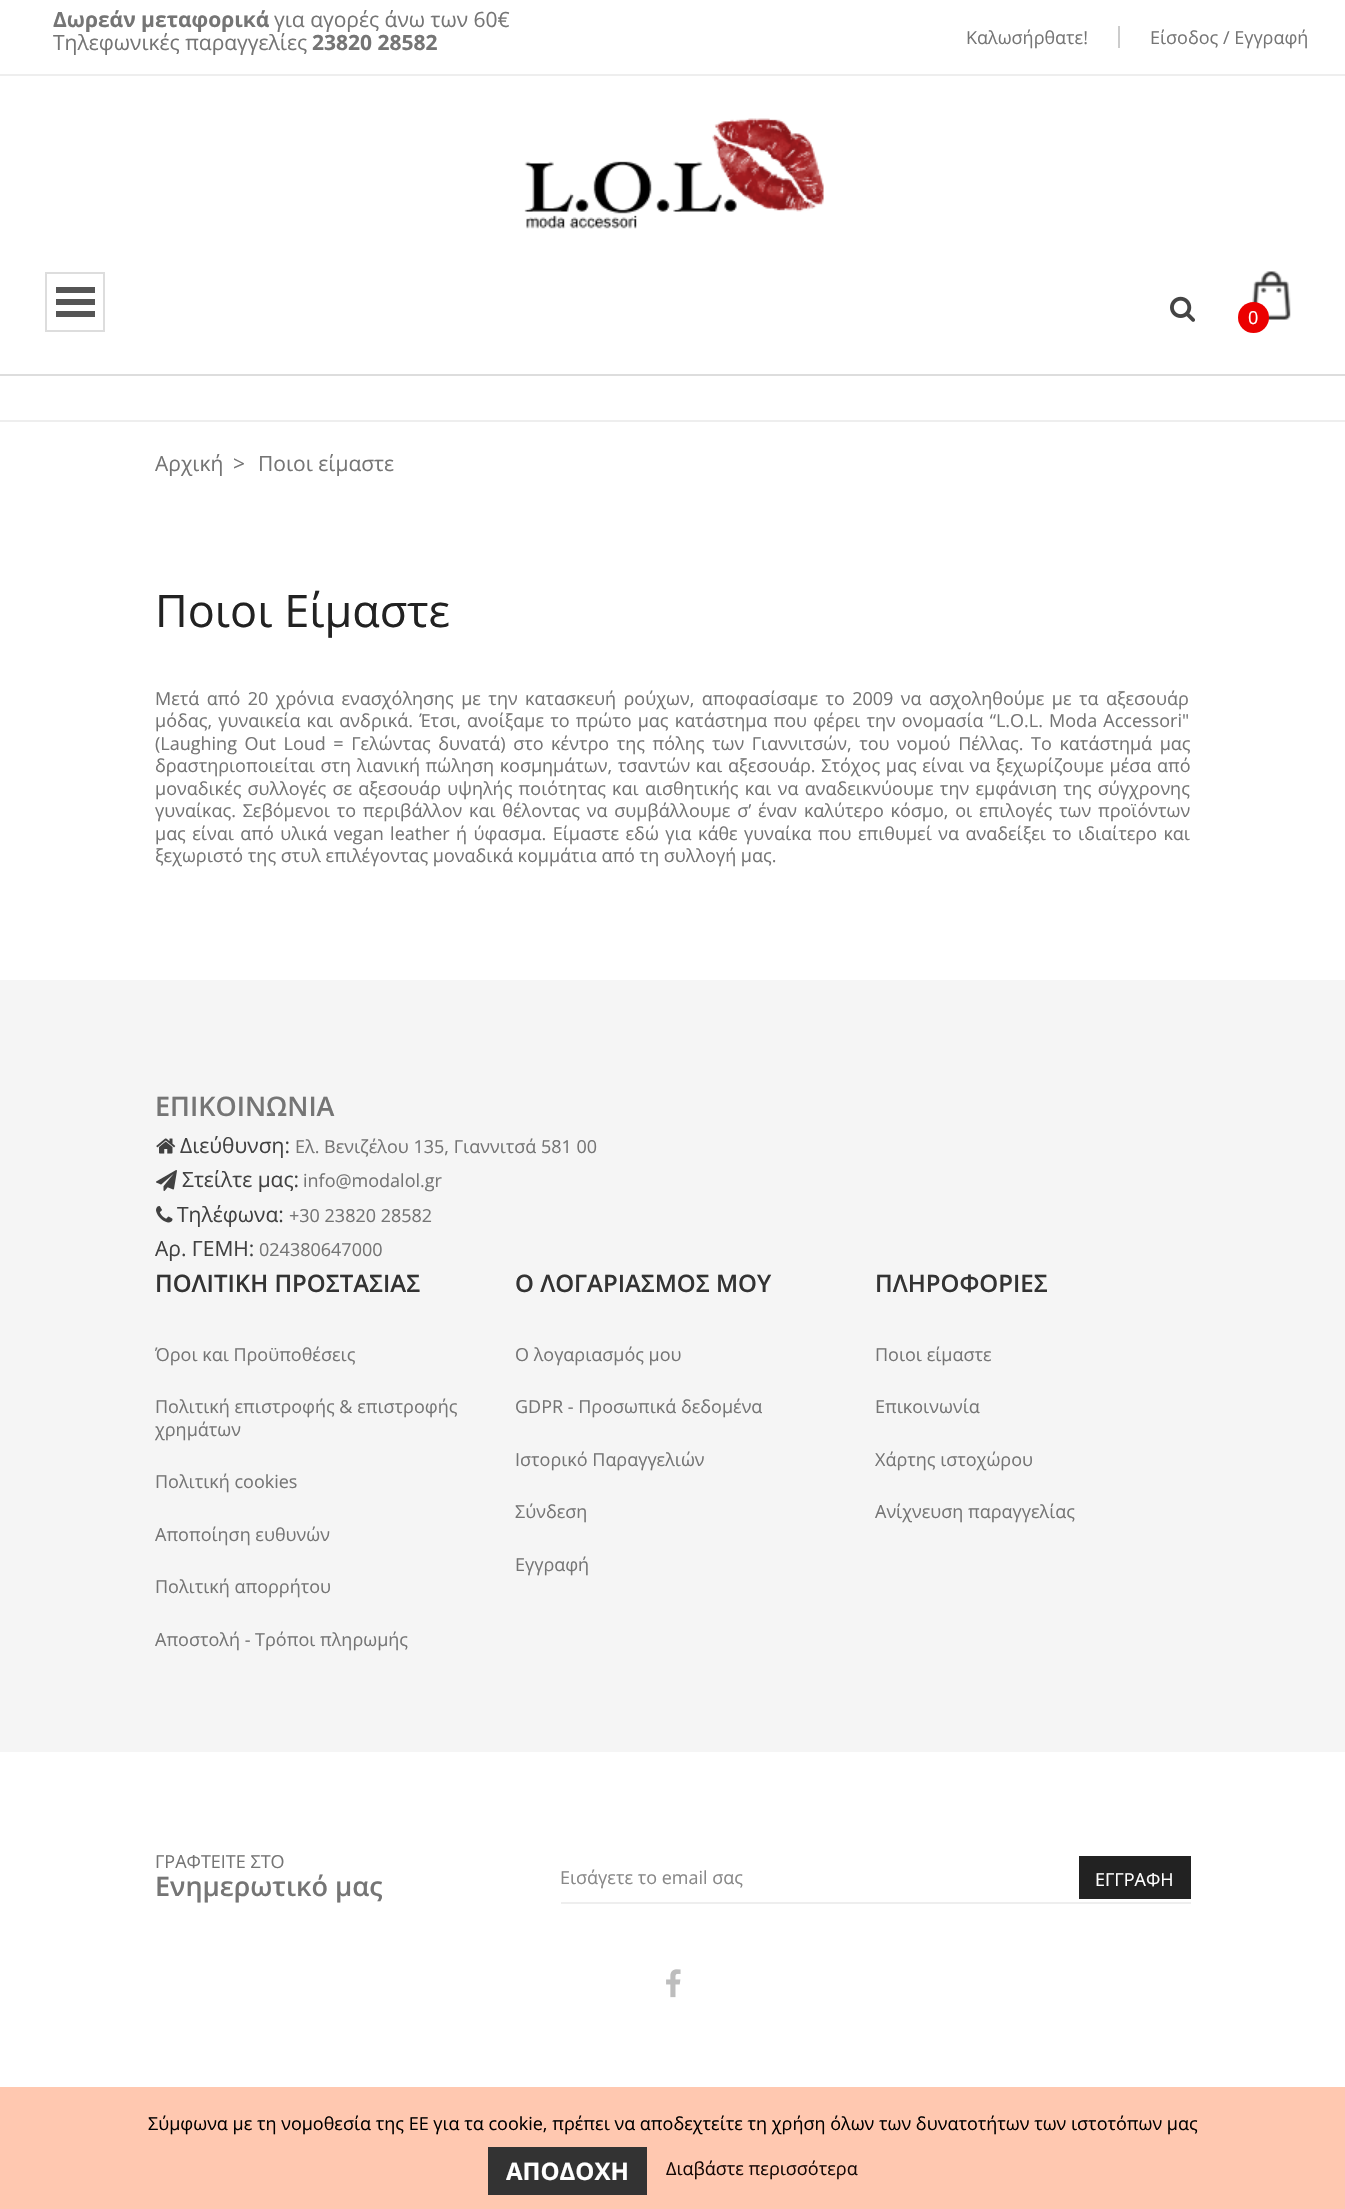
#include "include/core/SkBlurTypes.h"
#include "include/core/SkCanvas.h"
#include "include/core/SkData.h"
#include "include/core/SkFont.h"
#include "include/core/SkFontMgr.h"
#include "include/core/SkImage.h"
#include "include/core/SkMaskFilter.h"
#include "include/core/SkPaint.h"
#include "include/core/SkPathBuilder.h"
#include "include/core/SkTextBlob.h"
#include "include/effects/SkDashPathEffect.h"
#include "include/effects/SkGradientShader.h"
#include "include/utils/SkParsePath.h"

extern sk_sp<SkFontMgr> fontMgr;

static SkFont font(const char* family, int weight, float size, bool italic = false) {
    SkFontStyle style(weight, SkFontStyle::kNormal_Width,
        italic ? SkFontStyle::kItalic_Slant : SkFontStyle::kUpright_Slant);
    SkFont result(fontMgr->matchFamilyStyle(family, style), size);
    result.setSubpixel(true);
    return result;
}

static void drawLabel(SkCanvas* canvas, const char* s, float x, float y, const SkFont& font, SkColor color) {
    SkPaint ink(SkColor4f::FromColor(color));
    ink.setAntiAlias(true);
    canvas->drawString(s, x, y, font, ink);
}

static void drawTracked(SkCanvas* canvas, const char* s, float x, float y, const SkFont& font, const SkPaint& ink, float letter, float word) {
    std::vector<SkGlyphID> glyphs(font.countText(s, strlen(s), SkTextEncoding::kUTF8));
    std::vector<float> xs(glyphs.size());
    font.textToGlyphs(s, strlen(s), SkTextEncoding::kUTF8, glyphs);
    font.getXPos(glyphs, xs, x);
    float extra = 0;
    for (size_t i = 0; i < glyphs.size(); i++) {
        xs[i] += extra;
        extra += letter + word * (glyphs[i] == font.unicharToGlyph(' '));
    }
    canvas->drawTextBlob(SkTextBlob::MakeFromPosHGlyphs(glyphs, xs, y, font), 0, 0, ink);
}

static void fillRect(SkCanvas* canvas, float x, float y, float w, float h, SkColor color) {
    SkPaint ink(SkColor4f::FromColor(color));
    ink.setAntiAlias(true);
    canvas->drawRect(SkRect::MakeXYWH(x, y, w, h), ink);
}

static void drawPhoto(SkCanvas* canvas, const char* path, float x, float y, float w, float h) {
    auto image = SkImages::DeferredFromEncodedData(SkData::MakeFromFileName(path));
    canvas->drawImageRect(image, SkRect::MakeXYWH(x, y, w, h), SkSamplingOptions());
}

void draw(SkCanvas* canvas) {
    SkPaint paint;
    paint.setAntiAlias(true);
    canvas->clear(0xFFFFFFFF);
    fillRect(canvas, 0, 420, 1345, 2, 0xFFEEEEEE);
    fillRect(canvas, 0, 74, 1345, 2, 0xFFEEEEEE);
    SkFont font1 = font("Open Sans", 700, 21);
    drawLabel(canvas, "Δωρεάν μεταφορικά", 53, 27, font1, 0xFF757575);
    SkFont font2 = font("Open Sans", 400, 21);
    drawLabel(canvas, "για αγορές άνω των 60€", 274, 27, font2, 0xFF757575);
    drawLabel(canvas, "Τηλεφωνικές παραγγελίες", 53, 50, font2, 0xFF757575);
    drawLabel(canvas, "23820 28582", 312, 50, font1, 0xFF757575);
    fillRect(canvas, 1118, 26, 2, 22, 0xFFCCCCCC);
    SkFont font3 = font("Open Sans", 400, 18);
    drawLabel(canvas, "Καλωσήρθατε!", 966, 44, font3, 0xFF757575);
    drawLabel(canvas, "Είσοδος / Εγγραφή", 1150, 44, font3, 0xFF757575);
    fillRect(canvas, 0, 374, 1345, 2, 0xFFDDDDDD);
    drawPhoto(canvas, "assets/img1.png", 524, 118, 300, 111);
    paint.setStroke(true);
    paint.setStrokeWidth(2);
    paint.setColor(0xFFDDDDDD);
    canvas->drawRect(SkRect::MakeXYWH(46, 273, 58, 58), paint);
    fillRect(canvas, 56, 287, 39, 6, 0xFF555555);
    fillRect(canvas, 56, 299, 39, 6, 0xFF555555);
    fillRect(canvas, 56, 311, 39, 6, 0xFF555555);
    drawPhoto(canvas, "assets/img2.png", 1170, 296, 25, 26);
    drawPhoto(canvas, "assets/img3.png", 1252, 271, 39, 49);
    paint.setStroke(false);
    paint.setColor(0xFFEB0000);
    canvas->drawCircle(1253.5f, 317.5f, 15.5f, paint);
    drawLabel(canvas, "0", 1248, 324, font3, 0xFFFFFFFF);
    drawLabel(canvas, "Αρχική", 155, 471, font2, 0xFF757575);
    drawLabel(canvas, ">", 233, 471, font2, 0xFF757575);
    drawLabel(canvas, "Ποιοι είμαστε", 258, 471, font2, 0xFF757575);
    SkFont font4 = font("Open Sans", 400, 45);
    drawLabel(canvas, "Ποιοι Είμαστε", 155, 627, font4, 0xFF222222);
    paint.setColor(0xFF757575);
    drawTracked(canvas, "Μετά από 20 χρόνια ενασχόλησης με την κατασκευή ρούχων, αποφασίσαμε το 2009 να ασχοληθούμε με τα αξεσουάρ", 155, 705, font3, paint, 0, 2.75f);
    drawTracked(canvas, "μόδας, γυναικεία και ανδρικά. Έτσι, ανοίξαμε το πρώτο μας κατάστημα που φέρει την ονομασία “L.O.L. Moda Accessori\"", 155, 727, font3, paint, 0, 1.5f);
    drawTracked(canvas, "(Laughing Out Loud = Γελώντας δυνατά) στο κέντρο της πόλης των Γιαννιτσών, του νομού Πέλλας. Το κατάστημά μας", 155, 750, font3, paint, 0, 2.9f);
    drawTracked(canvas, "δραστηριοποιείται στη λιανική πώληση κοσμημάτων, τσαντών και αξεσουάρ. Στόχος μας είναι να ξεχωρίζουμε μέσα από", 155, 772, font3, paint, 0, 1);
    drawTracked(canvas, "μοναδικές συλλογές σε αξεσουάρ υψηλής ποιότητας και αισθητικής και να αναδεικνύουμε την εμφάνιση της σύγχρονης", 155, 795, font3, paint, 0, 1.6f);
    drawTracked(canvas, "γυναίκας. Σεβόμενοι το περιβάλλον και θέλοντας να συμβάλλουμε σ’ έναν καλύτερο κόσμο, οι επιλογές των προϊόντων", 155, 817, font3, paint, 0, 2.1f);
    drawTracked(canvas, "μας είναι από υλικά vegan leather ή ύφασμα. Είμαστε εδώ για κάθε γυναίκα που επιθυμεί να αναδείξει το ιδιαίτερο και", 155, 840, font3, paint, 0, 1.75f);
    drawLabel(canvas, "ξεχωριστό της στυλ επιλέγοντας μοναδικά κομμάτια από τη συλλογή μας.", 155, 862, font3, 0xFF757575);
    fillRect(canvas, 0, 980, 1345, 772, 0xFFF5F5F5);
    SkFont font5 = font("Open Sans", 600, 27);
    drawLabel(canvas, "ΕΠΙΚΟΙΝΩΝΙΑ", 155, 1116, font5, 0xFF757575);
    drawPhoto(canvas, "assets/img4.png", 156, 1138, 20, 16);
    drawLabel(canvas, "Διεύθυνση:", 180, 1153, font2, 0xFF414141);
    drawLabel(canvas, "Ελ. Βενιζέλου 135, Γιαννιτσά 581 00", 295, 1153, font3, 0xFF757575);
    drawPhoto(canvas, "assets/img5.png", 156, 1170, 21, 21);
    drawLabel(canvas, "Στείλτε μας:", 182, 1187, font2, 0xFF414141);
    drawLabel(canvas, "info@modalol.gr", 303, 1187, font3, 0xFF757575);
    drawPhoto(canvas, "assets/img6.png", 156, 1206, 17, 17);
    drawLabel(canvas, "Τηλέφωνα:", 177, 1222, font2, 0xFF414141);
    drawLabel(canvas, "+30 23820 28582", 289, 1222, font3, 0xFF757575);
    drawLabel(canvas, "Αρ. ΓΕΜΗ:", 155, 1256, font2, 0xFF414141);
    drawLabel(canvas, "024380647000", 259, 1256, font3, 0xFF757575);
    SkFont font6 = font("Open Sans", 600, 24);
    drawLabel(canvas, "ΠΟΛΙΤΙΚΗ ΠΡΟΣΤΑΣΙΑΣ", 155, 1292, font6, 0xFF333333);
    drawLabel(canvas, "Όροι και Προϋποθέσεις", 155, 1361, font3, 0xFF757575);
    drawLabel(canvas, "Πολιτική επιστροφής & επιστροφής", 155, 1413, font3, 0xFF757575);
    drawLabel(canvas, "χρημάτων", 155, 1436, font3, 0xFF757575);
    drawLabel(canvas, "Πολιτική cookies", 155, 1488, font3, 0xFF757575);
    drawLabel(canvas, "Αποποίηση ευθυνών", 155, 1541, font3, 0xFF757575);
    drawLabel(canvas, "Πολιτική απορρήτου", 155, 1593, font3, 0xFF757575);
    drawLabel(canvas, "Αποστολή - Τρόποι πληρωμής", 155, 1646, font3, 0xFF757575);
    drawLabel(canvas, "Ο ΛΟΓΑΡΙΑΣΜΟΣ ΜΟΥ", 515, 1292, font6, 0xFF333333);
    drawLabel(canvas, "Ο λογαριασμός μου", 515, 1361, font3, 0xFF757575);
    drawLabel(canvas, "GDPR - Προσωπικά δεδομένα", 515, 1413, font3, 0xFF757575);
    drawLabel(canvas, "Ιστορικό Παραγγελιών", 515, 1466, font3, 0xFF757575);
    drawLabel(canvas, "Σύνδεση", 515, 1518, font3, 0xFF757575);
    drawLabel(canvas, "Εγγραφή", 515, 1571, font3, 0xFF757575);
    drawLabel(canvas, "ΠΛΗΡΟΦΟΡΙΕΣ", 875, 1292, font6, 0xFF333333);
    drawLabel(canvas, "Ποιοι είμαστε", 875, 1361, font3, 0xFF757575);
    drawLabel(canvas, "Επικοινωνία", 875, 1413, font3, 0xFF757575);
    drawLabel(canvas, "Χάρτης ιστοχώρου", 875, 1466, font3, 0xFF757575);
    drawLabel(canvas, "Ανίχνευση παραγγελίας", 875, 1518, font3, 0xFF757575);
    drawLabel(canvas, "ΓΡΑΦΤΕΙΤΕ ΣΤΟ", 155, 1868, font3, 0xFF757575);
    drawLabel(canvas, "Ενημερωτικό μας", 155, 1896, font5, 0xFF757575);
    fillRect(canvas, 561, 1902, 630, 2, 0xFFEEEEEE);
    drawLabel(canvas, "Εισάγετε το email σας", 560, 1884, font3, 0xFF888888);
    fillRect(canvas, 1079, 1856, 112, 43, 0xFF222222);
    drawLabel(canvas, "ΕΓΓΡΑΦΗ", 1095, 1886, font3, 0xFFFFFFFF);
    drawPhoto(canvas, "assets/img7.png", 666, 1969, 15, 29);
    fillRect(canvas, 0, 2087, 1345, 122, 0xFFFFC8B0);
    drawLabel(canvas, "Σύμφωνα με τη νομοθεσία της ΕΕ για τα cookie, πρέπει να αποδεχτείτε τη χρήση όλων των δυνατοτήτων των ιστοτόπων μας", 148, 2130, font3, 0xFF000000);
    fillRect(canvas, 488, 2147, 159, 48, 0xFF333333);
    SkFont font7 = font("Open Sans", 700, 24);
    drawLabel(canvas, "ΑΠΟΔΟΧΗ", 506, 2180, font7, 0xFFFFFFFF);
    drawLabel(canvas, "Διαβάστε περισσότερα", 666, 2175, font3, 0xFF140805);
}
